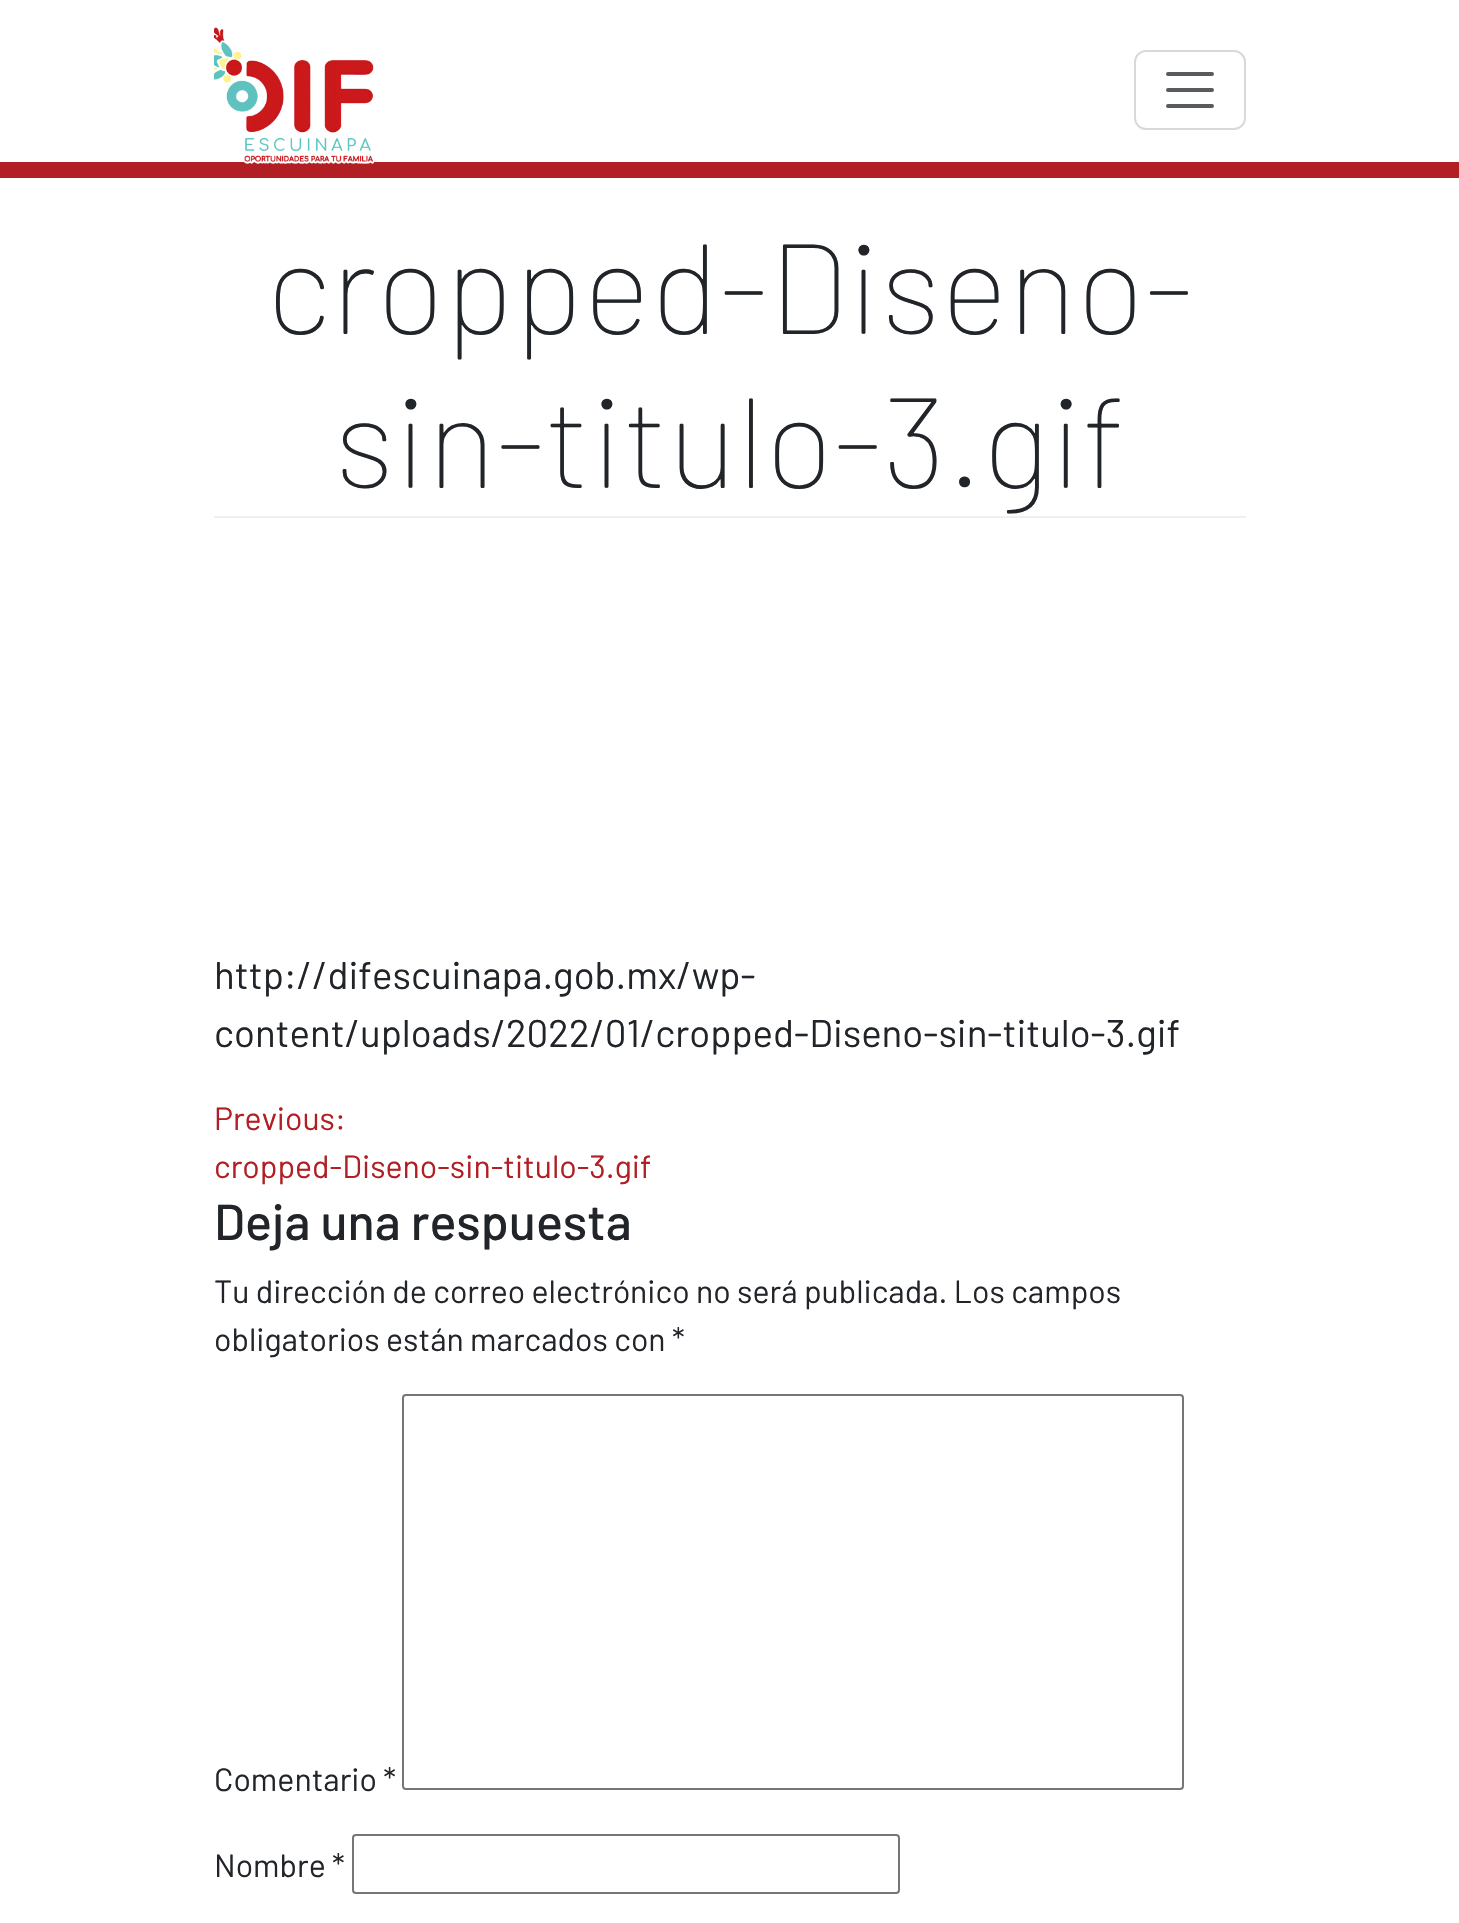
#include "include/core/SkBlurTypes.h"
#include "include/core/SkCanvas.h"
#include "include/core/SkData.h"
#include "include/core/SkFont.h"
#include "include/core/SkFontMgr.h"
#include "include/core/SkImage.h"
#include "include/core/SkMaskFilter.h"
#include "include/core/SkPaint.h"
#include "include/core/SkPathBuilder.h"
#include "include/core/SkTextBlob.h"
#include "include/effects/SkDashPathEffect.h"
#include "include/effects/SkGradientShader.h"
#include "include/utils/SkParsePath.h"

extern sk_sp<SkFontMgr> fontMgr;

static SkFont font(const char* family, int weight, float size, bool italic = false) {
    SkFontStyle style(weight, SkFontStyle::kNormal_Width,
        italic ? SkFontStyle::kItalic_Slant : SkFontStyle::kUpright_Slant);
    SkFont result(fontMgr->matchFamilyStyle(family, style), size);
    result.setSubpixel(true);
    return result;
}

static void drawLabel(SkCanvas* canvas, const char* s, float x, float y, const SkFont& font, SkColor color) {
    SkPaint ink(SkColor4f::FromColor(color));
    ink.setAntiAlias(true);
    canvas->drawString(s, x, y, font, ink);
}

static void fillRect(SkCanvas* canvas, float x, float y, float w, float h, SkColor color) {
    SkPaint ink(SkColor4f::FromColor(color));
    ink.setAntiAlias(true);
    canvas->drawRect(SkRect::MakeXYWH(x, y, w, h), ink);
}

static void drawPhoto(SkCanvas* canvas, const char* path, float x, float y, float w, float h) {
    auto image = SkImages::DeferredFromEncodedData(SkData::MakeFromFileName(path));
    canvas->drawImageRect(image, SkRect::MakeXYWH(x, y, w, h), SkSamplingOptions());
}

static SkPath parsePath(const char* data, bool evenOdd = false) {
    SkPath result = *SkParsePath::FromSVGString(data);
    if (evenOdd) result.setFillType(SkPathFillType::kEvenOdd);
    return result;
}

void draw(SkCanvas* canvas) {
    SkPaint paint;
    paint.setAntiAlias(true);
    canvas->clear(0xFFFFFFFF);
    fillRect(canvas, 0, 162, 1459, 16, 0xFFB11E23);
    drawPhoto(canvas, "assets/img1.png", 214, 27, 160, 137);
    paint.setStroke(true);
    paint.setStrokeWidth(2);
    paint.setColor(0xFFD9D9D9);
    canvas->drawRoundRect(SkRect::MakeXYWH(1135, 51, 110, 78), 11, 11, paint);
    paint.setStrokeWidth(4);
    paint.setStrokeCap(SkPaint::kRound_Cap);
    paint.setColor(0xFF595C5F);
    canvas->drawPath(parsePath("M1168 74H1212M1168 90H1212M1168 106H1212"), paint);
    fillRect(canvas, 214, 516, 1032, 2, 0xFFECF0F1);
    SkFont font1 = font("Barlow", 100, 128);
    drawLabel(canvas, "cropped-Diseno-", 266, 334, font1, 0xFF212529);
    drawLabel(canvas, "sin-titulo-3.gif", 334, 488, font1, 0xFF212529);
    SkFont font2 = font("Barlow", 400, 38.4f);
    drawLabel(canvas, "http://difescuinapa.gob.mx/wp-", 214, 989, font2, 0xFF212529);
    drawLabel(canvas, "content/uploads/2022/01/cropped-Diseno-sin-titulo-3.gif", 214, 1047, font2, 0xFF212529);
    SkFont font3 = font("Barlow", 400, 32);
    drawLabel(canvas, "Previous:", 214, 1130, font3, 0xFFB11E23);
    drawLabel(canvas, "cropped-Diseno-sin-titulo-3.gif", 214, 1178, font3, 0xFFB11E23);
    SkFont font4 = font("Barlow", 500, 50.25f);
    drawLabel(canvas, "Deja una respuesta", 214, 1240, font4, 0xFF212529);
    drawLabel(canvas, "Tu dirección de correo electrónico no será publicada. Los campos", 214, 1303, font3, 0xFF212529);
    drawLabel(canvas, "obligatorios están marcados con *", 214, 1351, font3, 0xFF212529);
    drawLabel(canvas, "Comentario *", 214, 1791, font3, 0xFF212529);
    paint.setStrokeWidth(2);
    paint.setStrokeCap(SkPaint::kButt_Cap);
    paint.setColor(0xFF767676);
    canvas->drawRoundRect(SkRect::MakeXYWH(403, 1395, 780, 394), 3, 3, paint);
    drawLabel(canvas, "Nombre *", 214, 1877, font3, 0xFF212529);
    canvas->drawRoundRect(SkRect::MakeXYWH(353, 1835, 546, 58), 3, 3, paint);
}
